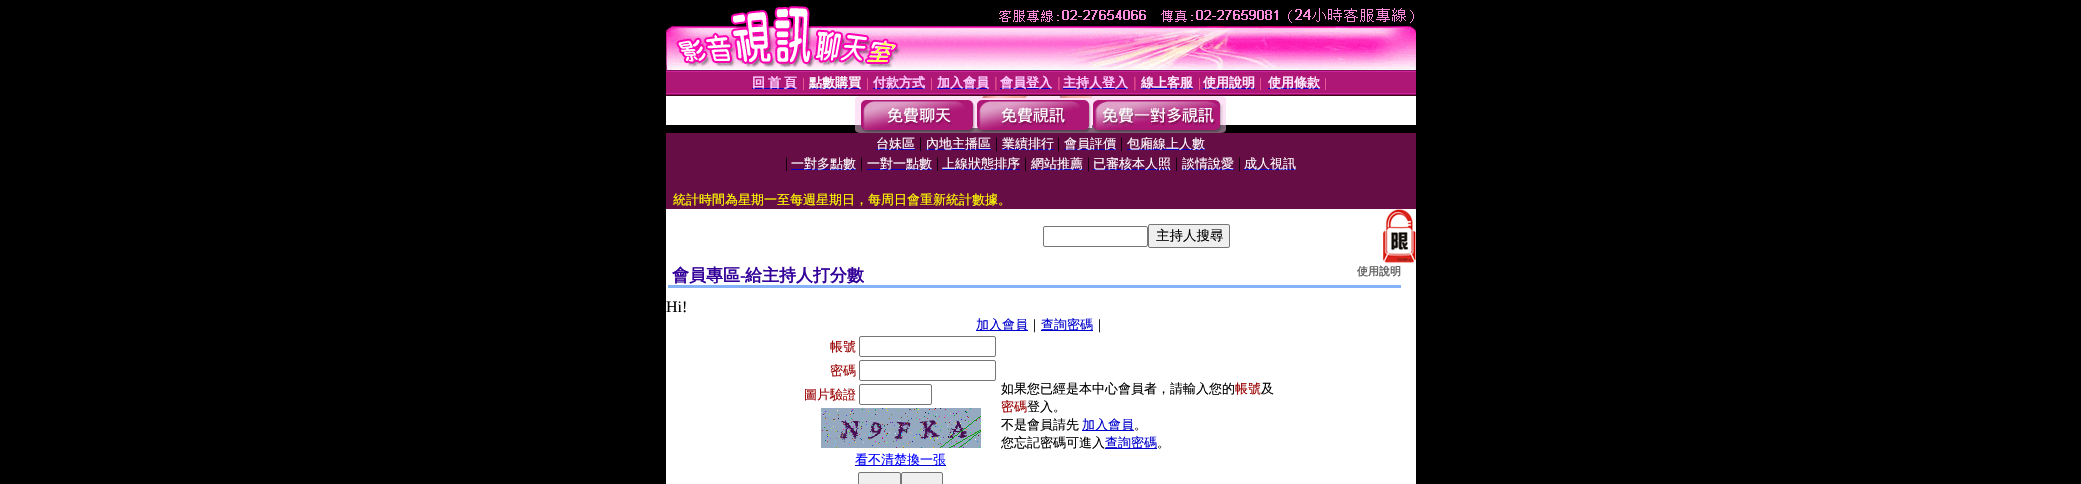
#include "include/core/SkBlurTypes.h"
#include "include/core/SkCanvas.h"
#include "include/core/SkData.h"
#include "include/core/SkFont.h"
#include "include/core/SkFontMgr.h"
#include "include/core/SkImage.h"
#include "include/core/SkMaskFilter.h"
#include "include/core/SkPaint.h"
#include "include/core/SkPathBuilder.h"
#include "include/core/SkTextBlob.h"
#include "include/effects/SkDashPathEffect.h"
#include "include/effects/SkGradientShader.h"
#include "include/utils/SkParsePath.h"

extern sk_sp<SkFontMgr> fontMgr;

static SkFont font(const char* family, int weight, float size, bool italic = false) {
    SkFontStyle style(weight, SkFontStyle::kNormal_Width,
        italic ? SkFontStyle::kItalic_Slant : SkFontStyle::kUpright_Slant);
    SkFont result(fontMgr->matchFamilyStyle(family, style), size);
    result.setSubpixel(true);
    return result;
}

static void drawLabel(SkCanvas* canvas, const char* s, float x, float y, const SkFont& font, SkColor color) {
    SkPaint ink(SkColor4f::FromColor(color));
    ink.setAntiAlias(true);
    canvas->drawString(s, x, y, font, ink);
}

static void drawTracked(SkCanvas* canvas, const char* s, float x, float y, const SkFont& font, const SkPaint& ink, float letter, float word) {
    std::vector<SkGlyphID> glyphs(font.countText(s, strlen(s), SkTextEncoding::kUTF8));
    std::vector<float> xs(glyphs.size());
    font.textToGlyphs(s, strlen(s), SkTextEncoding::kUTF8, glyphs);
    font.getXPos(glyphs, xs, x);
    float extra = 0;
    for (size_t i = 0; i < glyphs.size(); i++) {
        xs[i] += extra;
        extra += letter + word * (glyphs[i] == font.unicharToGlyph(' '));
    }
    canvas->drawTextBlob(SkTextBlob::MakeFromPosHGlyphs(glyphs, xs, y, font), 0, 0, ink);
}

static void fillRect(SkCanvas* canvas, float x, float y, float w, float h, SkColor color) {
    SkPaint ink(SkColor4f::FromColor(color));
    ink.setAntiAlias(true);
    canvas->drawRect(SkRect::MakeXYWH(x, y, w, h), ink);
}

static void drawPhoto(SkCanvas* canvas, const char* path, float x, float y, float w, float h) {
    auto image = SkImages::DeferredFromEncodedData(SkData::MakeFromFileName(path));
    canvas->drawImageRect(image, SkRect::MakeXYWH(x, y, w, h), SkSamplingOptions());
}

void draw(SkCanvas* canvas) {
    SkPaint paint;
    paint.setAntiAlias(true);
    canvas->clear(0xFF000000);
    drawPhoto(canvas, "assets/img1.png", 666, 6, 750, 64);
    drawPhoto(canvas, "assets/img2.png", 666, 70, 750, 26);
    fillRect(canvas, 752, 88, 45, 1, 0xFF0000CC);
    SkFont font1 = font("WenQuanYi Zen Hei", 700, 13);
    paint.setColor(0xFFFFCCFF);
    drawTracked(canvas, "回 首 頁", 752, 87, font1, paint, 0, -1);
    SkFont font2 = font("Liberation Serif", 400, 10);
    drawLabel(canvas, "│", 800, 87, font2, 0xFFFF6699);
    fillRect(canvas, 809, 88, 52, 1, 0xFF0000CC);
    drawLabel(canvas, "點數購買", 809, 87, font1, 0xFFFFFCFF);
    drawLabel(canvas, "│", 864, 87, font2, 0xFFFF6699);
    fillRect(canvas, 873, 88, 52, 1, 0xFF0000CC);
    drawLabel(canvas, "付款方式", 873, 87, font1, 0xFFFFCCFF);
    drawLabel(canvas, "│", 928, 87, font2, 0xFFFF6699);
    fillRect(canvas, 937, 88, 52, 1, 0xFF0000CC);
    drawLabel(canvas, "加入會員", 937, 87, font1, 0xFFFFCCFF);
    SkFont font3 = font("Liberation Serif", 400, 11);
    drawLabel(canvas, "│", 992, 87, font3, 0xFFFF6699);
    fillRect(canvas, 1000, 88, 52, 1, 0xFF0000CC);
    drawLabel(canvas, "會員登入", 1000, 87, font1, 0xFFFFCCFF);
    drawLabel(canvas, "│", 1055, 87, font3, 0xFFFF6699);
    fillRect(canvas, 1063, 88, 65, 1, 0xFF0000CC);
    drawLabel(canvas, "主持人登入", 1063, 87, font1, 0xFFFFCCFF);
    drawLabel(canvas, "│", 1131, 87, font3, 0xFFFF6699);
    fillRect(canvas, 1141, 88, 52, 1, 0xFF0000CC);
    drawLabel(canvas, "線上客服", 1141, 87, font1, 0xFFFFECFF);
    drawLabel(canvas, "│", 1196, 87, font2, 0xFFFF6699);
    fillRect(canvas, 1203, 88, 52, 1, 0xFF0000CC);
    drawLabel(canvas, "使用說明", 1203, 87, font1, 0xFFFFECFF);
    drawLabel(canvas, "│", 1257, 87, font2, 0xFFFF6699);
    fillRect(canvas, 1268, 88, 52, 1, 0xFF0000CC);
    drawLabel(canvas, "使用條款", 1268, 87, font1, 0xFFFFECFF);
    drawLabel(canvas, "│", 1322, 87, font2, 0xFFFF6699);
    fillRect(canvas, 666, 96, 750, 29, 0xFFFFFFFF);
    drawPhoto(canvas, "assets/img3.png", 855, 96, 5, 37);
    drawPhoto(canvas, "assets/img4.png", 860, 96, 116, 37);
    drawPhoto(canvas, "assets/img5.png", 976, 96, 116, 37);
    drawPhoto(canvas, "assets/img6.png", 1092, 96, 130, 37);
    drawPhoto(canvas, "assets/img7.png", 1222, 96, 4, 37);
    fillRect(canvas, 666, 133, 750, 76, 0xFF660D45);
    fillRect(canvas, 876, 149, 39, 1, 0xFF0000CC);
    SkFont font4 = font("WenQuanYi Zen Hei", 500, 13);
    drawLabel(canvas, "台妹區", 876, 148, font4, 0xFFFFFCFF);
    SkFont font5 = font("Liberation Serif", 400, 15);
    drawLabel(canvas, "|", 919, 148, font5, 0xFF000000);
    fillRect(canvas, 926, 149, 65, 1, 0xFF0000CC);
    drawLabel(canvas, "內地主播區", 926, 148, font4, 0xFFFFFCFF);
    drawLabel(canvas, "|", 995, 148, font5, 0xFF000000);
    fillRect(canvas, 1002, 149, 52, 1, 0xFF0000CC);
    drawLabel(canvas, "業績排行", 1002, 148, font4, 0xFFFFFCFF);
    drawLabel(canvas, "|", 1057, 148, font5, 0xFF000000);
    fillRect(canvas, 1064, 149, 52, 1, 0xFF0000CC);
    drawLabel(canvas, "會員評價", 1064, 148, font4, 0xFFFFFCFF);
    drawLabel(canvas, "|", 1120, 148, font5, 0xFF000000);
    fillRect(canvas, 1127, 149, 78, 1, 0xFF0000CC);
    drawLabel(canvas, "包廂線上人數", 1127, 148, font4, 0xFFFFFCFF);
    drawLabel(canvas, "|", 785, 168, font5, 0xFF000000);
    fillRect(canvas, 791, 169, 65, 1, 0xFF0000CC);
    drawLabel(canvas, "一對多點數", 791, 168, font4, 0xFFFFFCFF);
    drawLabel(canvas, "|", 860, 168, font5, 0xFF000000);
    fillRect(canvas, 867, 169, 65, 1, 0xFF0000CC);
    drawLabel(canvas, "一對一點數", 867, 168, font4, 0xFFFFFCFF);
    drawLabel(canvas, "|", 936, 168, font5, 0xFF000000);
    fillRect(canvas, 942, 169, 78, 1, 0xFF0000CC);
    drawLabel(canvas, "上線狀態排序", 942, 168, font4, 0xFFFFFCFF);
    drawLabel(canvas, "|", 1024, 168, font5, 0xFF000000);
    fillRect(canvas, 1031, 169, 52, 1, 0xFF0000CC);
    drawLabel(canvas, "網站推薦", 1031, 168, font4, 0xFFFFFCFF);
    drawLabel(canvas, "|", 1087, 168, font5, 0xFF000000);
    fillRect(canvas, 1093, 169, 78, 1, 0xFF0000CC);
    drawLabel(canvas, "已審核本人照", 1093, 168, font4, 0xFFFFFCFF);
    drawLabel(canvas, "|", 1175, 168, font5, 0xFF000000);
    fillRect(canvas, 1182, 169, 52, 1, 0xFF0000CC);
    drawLabel(canvas, "談情說愛", 1182, 168, font4, 0xFFFFFCFF);
    drawLabel(canvas, "|", 1238, 168, font5, 0xFF000000);
    fillRect(canvas, 1244, 169, 52, 1, 0xFF0000CC);
    drawLabel(canvas, "成人視訊", 1244, 168, font4, 0xFFFFFCFF);
    drawLabel(canvas, "統計時間為星期一至每週星期日，每周日會重新統計數據。", 673, 204, font4, 0xFFFFFF00);
    fillRect(canvas, 666, 209, 717, 54, 0xFFFFFFFF);
    paint.setStroke(true);
    paint.setStrokeWidth(1);
    paint.setColor(0xFF767676);
    canvas->drawRoundRect(SkRect::MakeXYWH(1043.5f, 226.5f, 104, 20), 1.5f, 1.5f, paint);
    paint.setStroke(false);
    paint.setColor(0xFFEFEFEF);
    canvas->drawRoundRect(SkRect::MakeXYWH(1148.5f, 224.5f, 81, 23), 1.5f, 1.5f, paint);
    paint.setStroke(true);
    paint.setColor(0xFF767676);
    canvas->drawRoundRect(SkRect::MakeXYWH(1148.5f, 224.5f, 81, 23), 1.5f, 1.5f, paint);
    SkFont font6 = font("WenQuanYi Zen Hei", 500, 13.5f);
    drawLabel(canvas, "主持人搜尋", 1156, 240, font6, 0xFF000000);
    drawPhoto(canvas, "assets/img8.png", 1383, 209, 33, 54);
    fillRect(canvas, 666, 263, 750, 221, 0xFFFFFFFF);
    fillRect(canvas, 668, 285, 733, 3, 0xFF85B2FB);
    SkFont font7 = font("WenQuanYi Zen Hei", 700, 17);
    drawLabel(canvas, "會員專區", 672, 281, font7, 0xFF330099);
    SkFont font8 = font("Liberation Serif", 700, 17);
    drawLabel(canvas, "-", 740, 281, font8, 0xFF330099);
    drawLabel(canvas, "給主持人打分數", 745, 281, font7, 0xFF330099);
    SkFont font9 = font("WenQuanYi Zen Hei", 700, 11);
    drawLabel(canvas, "使用說明", 1357, 275, font9, 0xFF666666);
    SkFont font10 = font("Liberation Serif", 400, 16);
    drawLabel(canvas, "Hi!", 666, 312, font10, 0xFF000000);
    fillRect(canvas, 976, 330, 52, 1, 0xFF0000CC);
    drawLabel(canvas, "加入會員", 976, 329, font4, 0xFF0000CC);
    drawLabel(canvas, "｜", 1028, 329, font4, 0xFF000000);
    fillRect(canvas, 1041, 330, 52, 1, 0xFF0000CC);
    drawLabel(canvas, "查詢密碼", 1041, 329, font4, 0xFF0000CC);
    drawLabel(canvas, "｜", 1093, 329, font4, 0xFF000000);
    drawLabel(canvas, "帳號", 830, 351, font4, 0xFF990000);
    canvas->drawRoundRect(SkRect::MakeXYWH(859.5f, 336.5f, 136, 20), 1.5f, 1.5f, paint);
    drawLabel(canvas, "密碼", 830, 375, font4, 0xFF990000);
    canvas->drawRoundRect(SkRect::MakeXYWH(859.5f, 360.5f, 136, 20), 1.5f, 1.5f, paint);
    drawLabel(canvas, "圖片驗證", 804, 399, font4, 0xFF990000);
    canvas->drawRoundRect(SkRect::MakeXYWH(859.5f, 384.5f, 72, 20), 1.5f, 1.5f, paint);
    drawPhoto(canvas, "assets/img9.png", 821, 408, 160, 40);
    fillRect(canvas, 855, 465, 91, 1, 0xFF0000CC);
    drawLabel(canvas, "看不清楚換一張", 855, 464, font4, 0xFF0000FF);
    paint.setStroke(false);
    paint.setColor(0xFFEFEFEF);
    canvas->drawRoundRect(SkRect::MakeXYWH(858.5f, 472.5f, 42, 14), 1.5f, 1.5f, paint);
    paint.setStroke(true);
    paint.setColor(0xFF767676);
    canvas->drawRoundRect(SkRect::MakeXYWH(858.5f, 472.5f, 42, 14), 1.5f, 1.5f, paint);
    paint.setStroke(false);
    paint.setColor(0xFFEFEFEF);
    canvas->drawRoundRect(SkRect::MakeXYWH(901.5f, 472.5f, 41, 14), 1.5f, 1.5f, paint);
    paint.setStroke(true);
    paint.setColor(0xFF767676);
    canvas->drawRoundRect(SkRect::MakeXYWH(901.5f, 472.5f, 41, 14), 1.5f, 1.5f, paint);
    drawLabel(canvas, "如果您已經是本中心會員者，請輸入您的", 1001, 393, font4, 0xFF000000);
    drawLabel(canvas, "帳號", 1235, 393, font4, 0xFF990000);
    drawLabel(canvas, "及", 1261, 393, font4, 0xFF000000);
    drawLabel(canvas, "密碼", 1001, 411, font4, 0xFF990000);
    drawLabel(canvas, "登入。", 1027, 411, font4, 0xFF000000);
    drawLabel(canvas, "不是會員請先", 1001, 429, font4, 0xFF000000);
    fillRect(canvas, 1082, 430, 52, 1, 0xFF0000CC);
    drawLabel(canvas, "加入會員", 1082, 429, font4, 0xFF0000CC);
    drawLabel(canvas, "。", 1134, 429, font4, 0xFF000000);
    drawLabel(canvas, "您忘記密碼可進入", 1001, 447, font4, 0xFF000000);
    fillRect(canvas, 1105, 448, 52, 1, 0xFF0000CC);
    drawLabel(canvas, "查詢密碼", 1105, 447, font4, 0xFF0000CC);
    drawLabel(canvas, "。", 1157, 447, font4, 0xFF000000);
}
